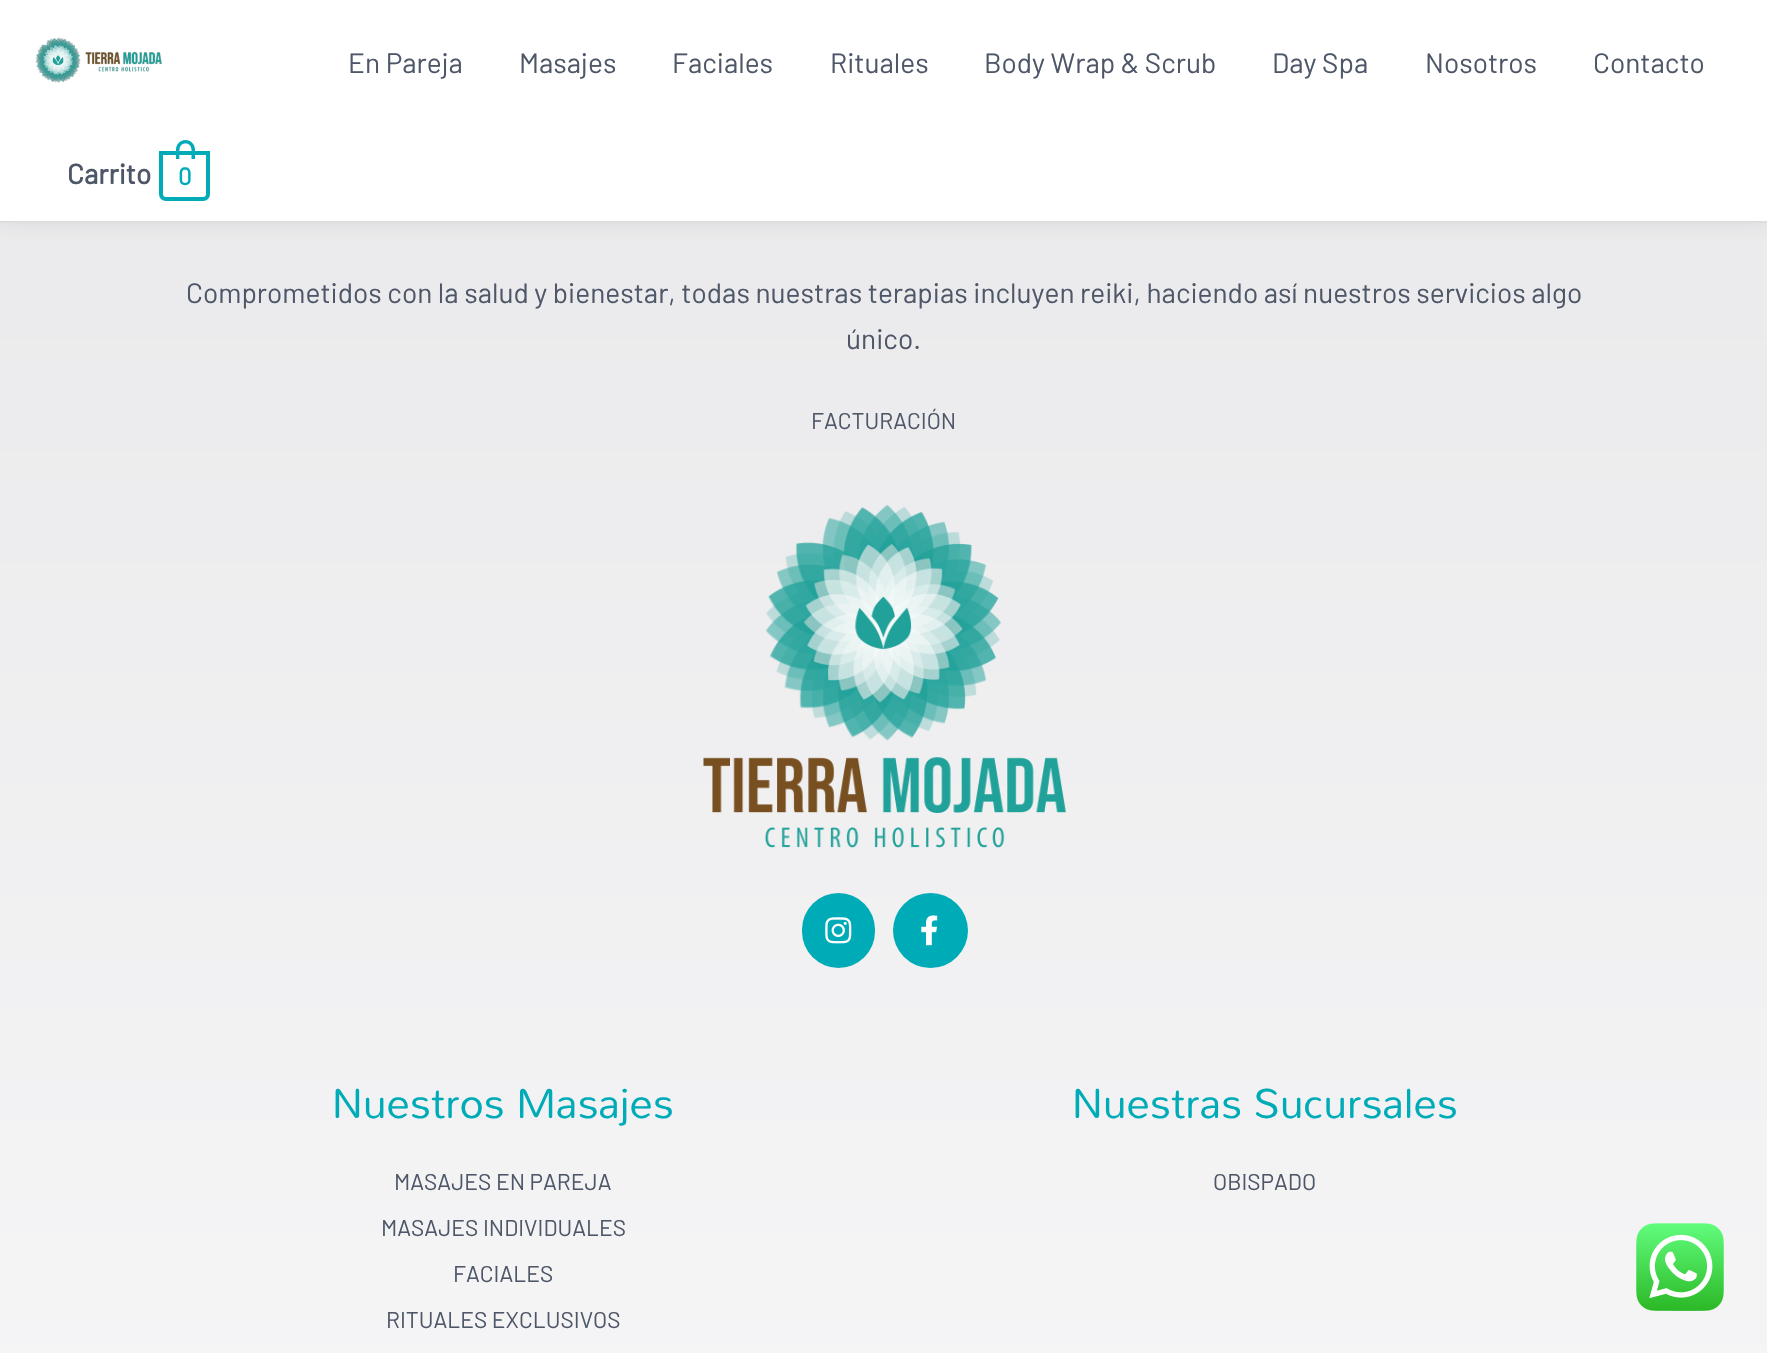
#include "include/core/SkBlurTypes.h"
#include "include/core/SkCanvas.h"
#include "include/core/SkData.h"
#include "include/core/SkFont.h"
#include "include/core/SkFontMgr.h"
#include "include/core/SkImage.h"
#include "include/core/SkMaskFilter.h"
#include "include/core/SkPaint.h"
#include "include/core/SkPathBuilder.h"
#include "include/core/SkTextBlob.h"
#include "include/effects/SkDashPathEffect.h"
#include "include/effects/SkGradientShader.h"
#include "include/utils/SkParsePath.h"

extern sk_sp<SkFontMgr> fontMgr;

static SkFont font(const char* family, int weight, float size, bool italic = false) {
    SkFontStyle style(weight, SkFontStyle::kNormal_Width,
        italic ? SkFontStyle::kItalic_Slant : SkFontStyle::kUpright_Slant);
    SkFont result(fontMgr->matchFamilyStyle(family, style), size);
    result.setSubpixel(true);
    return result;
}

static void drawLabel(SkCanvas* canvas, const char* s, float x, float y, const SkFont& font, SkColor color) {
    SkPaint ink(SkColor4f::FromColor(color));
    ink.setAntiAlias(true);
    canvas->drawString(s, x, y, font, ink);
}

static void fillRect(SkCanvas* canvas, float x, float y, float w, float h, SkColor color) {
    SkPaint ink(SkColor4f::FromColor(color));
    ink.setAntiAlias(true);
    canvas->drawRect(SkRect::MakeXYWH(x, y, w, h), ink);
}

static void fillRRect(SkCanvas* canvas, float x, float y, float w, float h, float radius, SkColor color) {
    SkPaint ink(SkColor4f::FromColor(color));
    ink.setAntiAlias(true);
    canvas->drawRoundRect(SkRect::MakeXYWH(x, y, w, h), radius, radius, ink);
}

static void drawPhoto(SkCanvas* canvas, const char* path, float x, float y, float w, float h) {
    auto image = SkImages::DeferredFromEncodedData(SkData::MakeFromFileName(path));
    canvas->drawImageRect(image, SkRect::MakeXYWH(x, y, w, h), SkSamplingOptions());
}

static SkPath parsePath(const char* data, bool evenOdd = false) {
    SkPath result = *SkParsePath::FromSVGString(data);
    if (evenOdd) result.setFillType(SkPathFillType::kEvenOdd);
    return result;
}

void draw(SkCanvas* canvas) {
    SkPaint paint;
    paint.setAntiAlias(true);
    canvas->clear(0xFFFFFFFF);
    {
        const SkColor colors[] = {0xFFE9E9EB, 0xFFF7F7F8};
        const float stops[] = {0, 1};
        const SkPoint ends[] = {{884, 61}, {884, 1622}};
        paint.setShader(SkGradientShader::MakeLinear(ends, colors, stops, 2, SkTileMode::kClamp));
        paint.setAlpha(255);
    }
    canvas->drawRect(SkRect::MakeXYWH(0, 223, 1767, 1130), paint);
    paint.setShader(nullptr);
    paint.setColor(0x12243242);
    paint.setMaskFilter(SkMaskFilter::MakeBlur(kNormal_SkBlurStyle, 9));
    canvas->drawRect(SkRect::MakeXYWH(0, 4, 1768, 222), paint);
    paint.setMaskFilter(nullptr);
    fillRect(canvas, 0, 0, 1767, 221, 0xFFFFFFFF);
    fillRect(canvas, 0, 221, 1767, 2, 0xFFDDDDDD);
    drawPhoto(canvas, "assets/img1.png", 35, 37, 127, 46);
    SkFont font1 = font("Barlow", 400, 28);
    drawLabel(canvas, "En Pareja", 348, 73, font1, 0xFF4E5768);
    drawLabel(canvas, "Masajes", 519, 73, font1, 0xFF4E5768);
    drawLabel(canvas, "Faciales", 672, 73, font1, 0xFF4E5768);
    drawLabel(canvas, "Rituales", 830, 73, font1, 0xFF4E5768);
    drawLabel(canvas, "Body Wrap & Scrub", 984, 73, font1, 0xFF4E5768);
    drawLabel(canvas, "Day Spa", 1272, 73, font1, 0xFF4E5768);
    drawLabel(canvas, "Nosotros", 1425, 73, font1, 0xFF4E5768);
    drawLabel(canvas, "Contacto", 1593, 73, font1, 0xFF4E5768);
    SkFont font2 = font("Barlow", 700, 28);
    drawLabel(canvas, "Carrito", 67, 184, font2, 0xFF4E5768);
    paint.setStroke(true);
    paint.setStrokeWidth(4);
    paint.setColor(0xFF00ABB8);
    canvas->drawPath(parsePath("M161 153H208V194C208 197 206 199 203 199H166C163 199 161 197 161 194Z"), paint);
    paint.setStroke(false);
    canvas->drawPath(parsePath("M185.5 140C191 140 195 144.5 195 149.5V159H176V149.5C176 144.5 180 140 185.5 140ZM185.5 143.5C193.5 143.5 191.5 154 191.5 159H179.5C179.5 154 177.5 143.5 185.5 143.5Z", true), paint);
    SkFont font3 = font("Barlow", 700, 24);
    drawLabel(canvas, "0", 178, 185, font3, 0xFF00ABB8);
    drawLabel(canvas, "Comprometidos con la salud y bienestar, todas nuestras terapias incluyen reiki, haciendo así nuestros servicios algo", 186, 303, font1, 0xFF4E5768);
    drawLabel(canvas, "único.", 846, 349, font1, 0xFF4E5768);
    SkFont font4 = font("Barlow", 400, 22.75f);
    drawLabel(canvas, "FACTURACIÓN", 811, 429, font4, 0xFF4E5768);
    drawPhoto(canvas, "assets/img2.png", 703, 504, 363, 344);
    fillRRect(canvas, 802, 893, 73, 75, 36.5f, 0xFF00ABB8);
    drawPhoto(canvas, "assets/img3.png", 825, 917, 27, 27);
    canvas->drawCircle(930.5f, 930.5f, 37.5f, paint);
    drawPhoto(canvas, "assets/img4.png", 921, 915, 17, 31);
    SkFont font5 = font("Mandali", 400, 42);
    drawLabel(canvas, "Nuestros Masajes", 332, 1118, font5, 0xFF00ABB8);
    drawLabel(canvas, "MASAJES EN PAREJA", 394, 1190, font4, 0xFF4E5768);
    drawLabel(canvas, "MASAJES INDIVIDUALES", 381, 1236, font4, 0xFF4E5768);
    drawLabel(canvas, "FACIALES", 453, 1282, font4, 0xFF4E5768);
    drawLabel(canvas, "RITUALES EXCLUSIVOS", 386, 1328, font4, 0xFF4E5768);
    drawLabel(canvas, "Nuestras Sucursales", 1072, 1118, font5, 0xFF00ABB8);
    drawLabel(canvas, "OBISPADO", 1213, 1190, font4, 0xFF4E5768);
    drawPhoto(canvas, "assets/img5.png", 1636, 1223, 88, 88);
}
